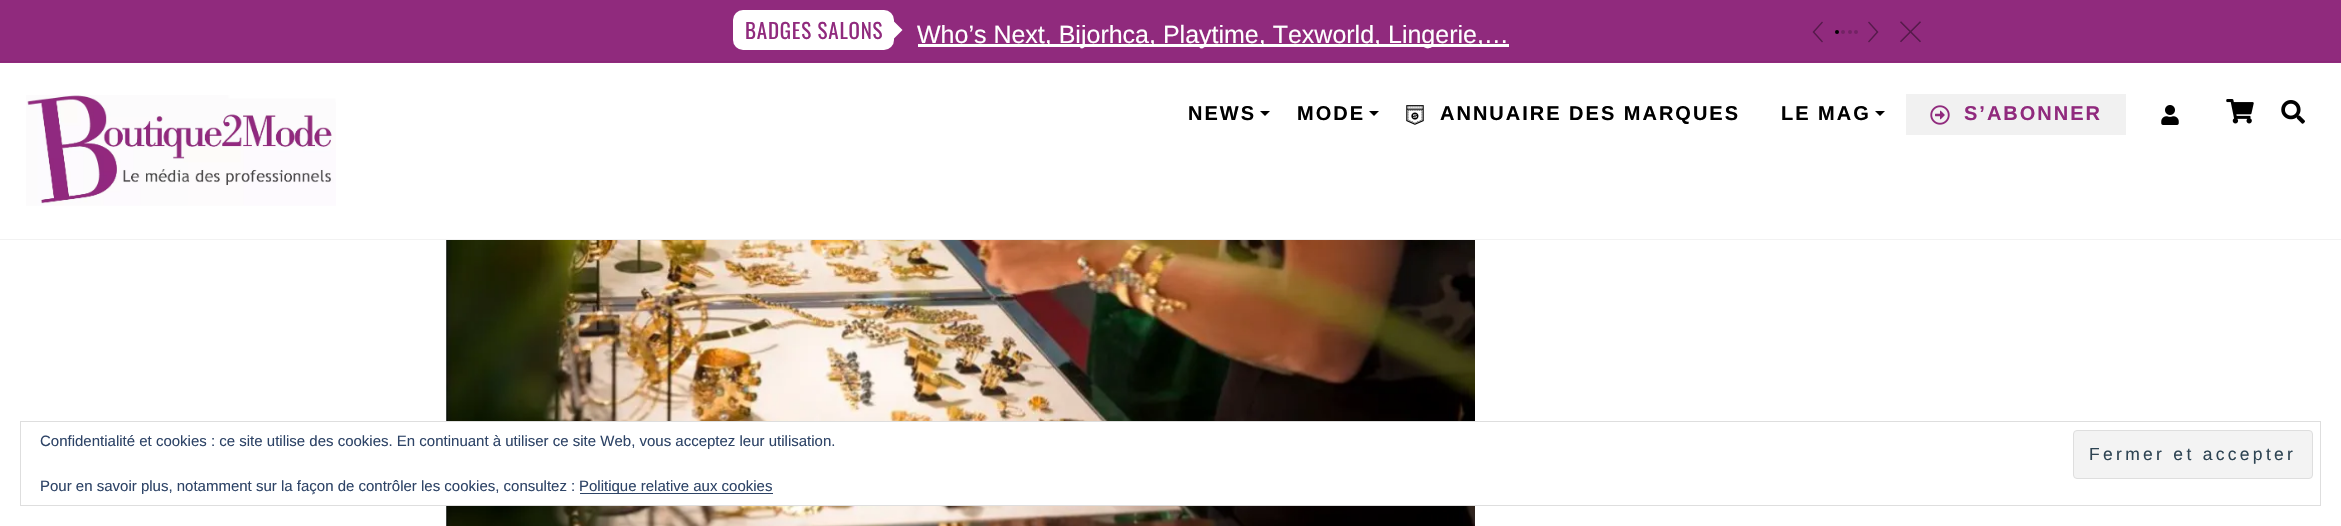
#include "include/core/SkBlurTypes.h"
#include "include/core/SkCanvas.h"
#include "include/core/SkData.h"
#include "include/core/SkFont.h"
#include "include/core/SkFontMgr.h"
#include "include/core/SkImage.h"
#include "include/core/SkMaskFilter.h"
#include "include/core/SkPaint.h"
#include "include/core/SkPathBuilder.h"
#include "include/core/SkTextBlob.h"
#include "include/effects/SkDashPathEffect.h"
#include "include/effects/SkGradientShader.h"
#include "include/utils/SkParsePath.h"

extern sk_sp<SkFontMgr> fontMgr;

static SkFont font(const char* family, int weight, float size, bool italic = false) {
    SkFontStyle style(weight, SkFontStyle::kNormal_Width,
        italic ? SkFontStyle::kItalic_Slant : SkFontStyle::kUpright_Slant);
    SkFont result(fontMgr->matchFamilyStyle(family, style), size);
    result.setSubpixel(true);
    return result;
}

static void drawLabel(SkCanvas* canvas, const char* s, float x, float y, const SkFont& font, SkColor color) {
    SkPaint ink(SkColor4f::FromColor(color));
    ink.setAntiAlias(true);
    canvas->drawString(s, x, y, font, ink);
}

static void drawTracked(SkCanvas* canvas, const char* s, float x, float y, const SkFont& font, const SkPaint& ink, float letter, float word) {
    std::vector<SkGlyphID> glyphs(font.countText(s, strlen(s), SkTextEncoding::kUTF8));
    std::vector<float> xs(glyphs.size());
    font.textToGlyphs(s, strlen(s), SkTextEncoding::kUTF8, glyphs);
    font.getXPos(glyphs, xs, x);
    float extra = 0;
    for (size_t i = 0; i < glyphs.size(); i++) {
        xs[i] += extra;
        extra += letter + word * (glyphs[i] == font.unicharToGlyph(' '));
    }
    canvas->drawTextBlob(SkTextBlob::MakeFromPosHGlyphs(glyphs, xs, y, font), 0, 0, ink);
}

static void fillRect(SkCanvas* canvas, float x, float y, float w, float h, SkColor color) {
    SkPaint ink(SkColor4f::FromColor(color));
    ink.setAntiAlias(true);
    canvas->drawRect(SkRect::MakeXYWH(x, y, w, h), ink);
}

static void fillRRect(SkCanvas* canvas, float x, float y, float w, float h, float radius, SkColor color) {
    SkPaint ink(SkColor4f::FromColor(color));
    ink.setAntiAlias(true);
    canvas->drawRoundRect(SkRect::MakeXYWH(x, y, w, h), radius, radius, ink);
}

static void drawPhoto(SkCanvas* canvas, const char* path, float x, float y, float w, float h) {
    auto image = SkImages::DeferredFromEncodedData(SkData::MakeFromFileName(path));
    canvas->drawImageRect(image, SkRect::MakeXYWH(x, y, w, h), SkSamplingOptions());
}

static SkPath parsePath(const char* data, bool evenOdd = false) {
    SkPath result = *SkParsePath::FromSVGString(data);
    if (evenOdd) result.setFillType(SkPathFillType::kEvenOdd);
    return result;
}

void draw(SkCanvas* canvas) {
    SkPaint paint;
    paint.setAntiAlias(true);
    canvas->clear(0xFFFFFFFF);
    fillRect(canvas, 0, 0, 2341, 63, 0xFF902A7D);
    fillRect(canvas, 0, 61, 2341, 1, 0xFF892877);
    fillRRect(canvas, 733, 10, 161, 40, 10, 0xFFFFFFFF);
    SkFont font1 = font("Oswald", 400, 21);
    paint.setColor(0xFF902A7D);
    drawTracked(canvas, "BADGES SALONS", 745, 39, font1, paint, 0.8f, 0);
    paint.setColor(0xFFFFFFFF);
    canvas->drawPath(parsePath("M892.5 40V20L902.5 30Z"), paint);
    fillRect(canvas, 918, 44, 591, 3, 0xFFFFFFFF);
    SkFont font2 = font("Liberation Sans", 400, 25);
    drawLabel(canvas, "Who’s Next, Bijorhca, Playtime, Texworld, Lingerie,…", 917, 43, font2, 0xFFFFFFFF);
    paint.setColor(0xFF56194B);
    canvas->drawPath(parsePath("M1822 42.5L1812.5 32L1822 21.5L1823 22.5L1814.5 32L1823 41.5Z"), paint);
    paint.setColor(0xFF000000);
    canvas->drawCircle(1837, 32, 2, paint);
    paint.setColor(0xFF732264);
    canvas->drawCircle(1843, 32, 2, paint);
    canvas->drawCircle(1850, 32, 2, paint);
    canvas->drawCircle(1856, 32, 2, paint);
    paint.setColor(0xFF56194B);
    canvas->drawPath(parsePath("M1869 42.5L1868 41.5L1876.5 32L1868 22.5L1869 21.5L1878.5 32Z"), paint);
    SkFont font3 = font("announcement", 400, 21);
    drawLabel(canvas, "c", 1900, 41, font3, 0xFF56194B);
    fillRect(canvas, 0, 239, 2341, 1, 0xFFF2F2F2);
    drawPhoto(canvas, "assets/img1.png", 26, 95, 310, 111);
    SkFont font4 = font("Liberation Sans", 700, 20);
    paint.setColor(0xFF000000);
    drawTracked(canvas, "NEWS", 1188, 120, font4, paint, 2, 0);
    canvas->drawPath(parsePath("M1260 111H1270L1265 116Z"), paint);
    drawTracked(canvas, "MODE", 1297, 120, font4, paint, 2, 0);
    canvas->drawPath(parsePath("M1369 111H1379L1374 116Z"), paint);
    drawPhoto(canvas, "assets/img2.png", 1406, 105, 18, 20);
    drawTracked(canvas, "ANNUAIRE DES MARQUES", 1440, 120, font4, paint, 2, 0);
    drawTracked(canvas, "LE MAG", 1781, 120, font4, paint, 2, 0);
    canvas->drawPath(parsePath("M1875 111H1885L1880 116Z"), paint);
    fillRect(canvas, 1906, 94, 220, 41, 0xFFF1F1F1);
    drawPhoto(canvas, "assets/img3.png", 1930, 105, 20, 20);
    paint.setColor(0xFF902A7D);
    drawTracked(canvas, "S’ABONNER", 1964, 120, font4, paint, 2, 0);
    drawPhoto(canvas, "assets/img4.png", 2161, 105, 18, 20);
    drawPhoto(canvas, "assets/img5.png", 2226, 99, 28, 25);
    drawPhoto(canvas, "assets/img6.png", 2281, 100, 24, 24);
    drawPhoto(canvas, "assets/img7.png", 446, 240, 1029, 286);
    fillRect(canvas, 446, 422, 1029, 83, 0xFFFFFFFF);
    paint.setStroke(true);
    paint.setStrokeWidth(1);
    paint.setColor(0xFFDEDEDE);
    canvas->drawRect(SkRect::MakeXYWH(20.5f, 421.5f, 2300, 84), paint);
    SkFont font5 = font("Liberation Sans", 400, 15);
    drawLabel(canvas, "Confidentialité et cookies : ce site utilise des cookies. En continuant à utiliser ce site Web, vous acceptez leur utilisation.", 40, 446, font5, 0xFF2E4467);
    paint.setStroke(false);
    paint.setColor(0xFFF3F3F3);
    canvas->drawRoundRect(SkRect::MakeXYWH(2073.5f, 430.5f, 239, 48), 3.5f, 3.5f, paint);
    paint.setStroke(true);
    paint.setColor(0xFFDEDEDE);
    canvas->drawRoundRect(SkRect::MakeXYWH(2073.5f, 430.5f, 239, 48), 3.5f, 3.5f, paint);
    SkFont font6 = font("Liberation Sans", 400, 17.5f);
    paint.setStroke(false);
    paint.setColor(0xFF2E4453);
    drawTracked(canvas, "Fermer et accepter", 2089, 460, font6, paint, 3.3f, 0);
    drawLabel(canvas, "Pour en savoir plus, notamment sur la façon de contrôler les cookies, consultez :", 40, 491, font5, 0xFF2E4467);
    fillRect(canvas, 580, 493, 193, 1, 0xFF2E4467);
    drawLabel(canvas, "Politique relative aux cookies", 579, 491, font5, 0xFF2E4467);
}
